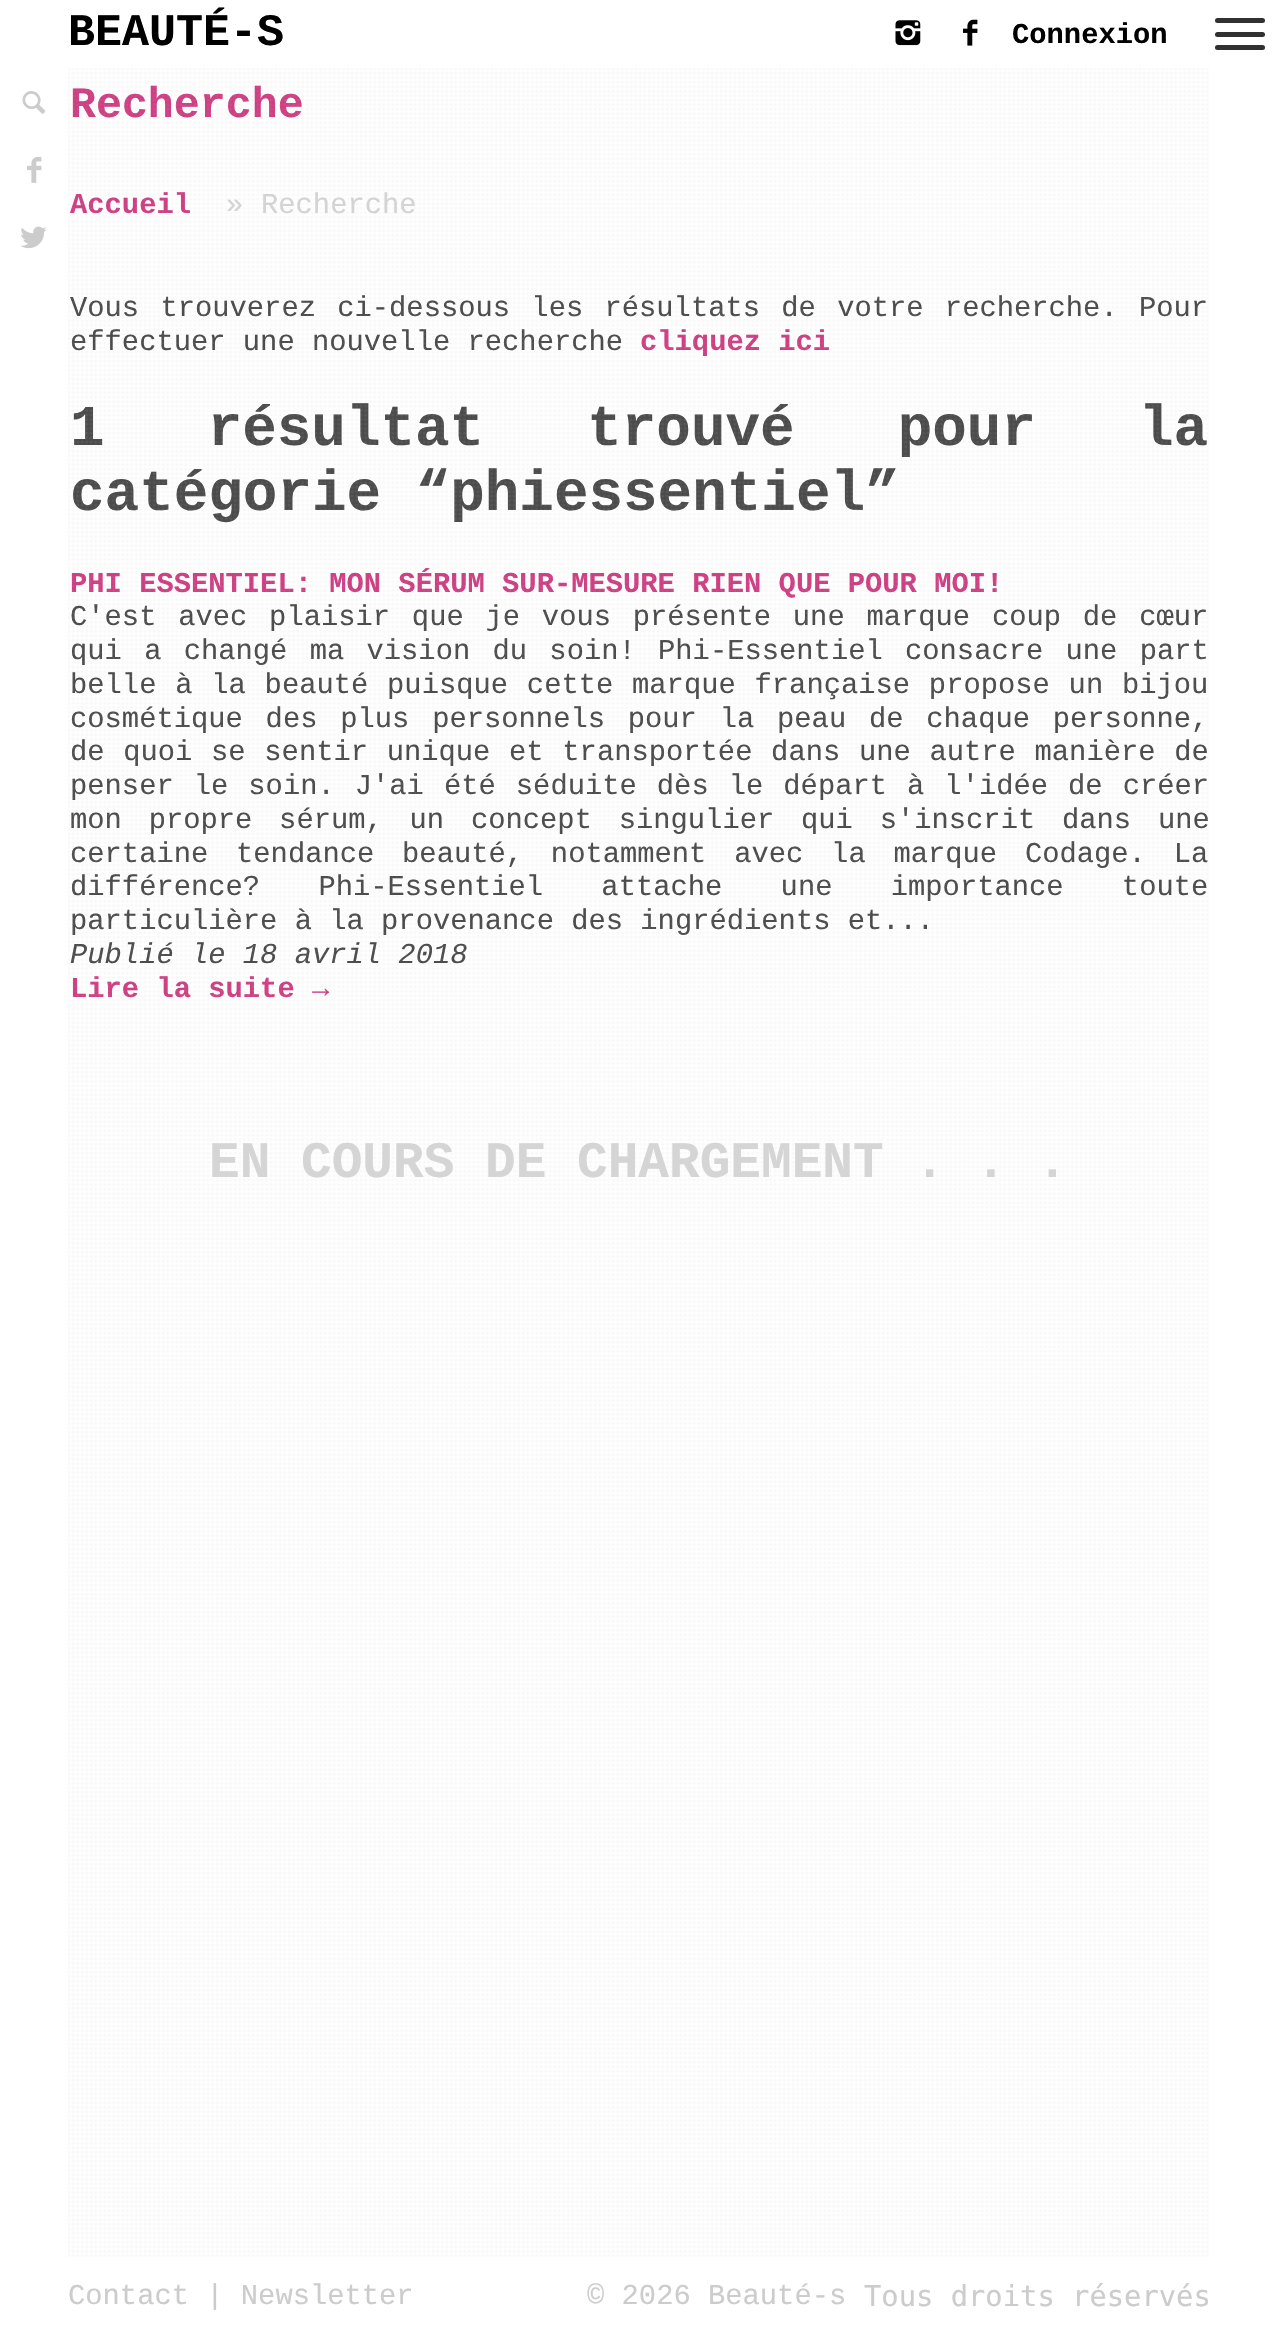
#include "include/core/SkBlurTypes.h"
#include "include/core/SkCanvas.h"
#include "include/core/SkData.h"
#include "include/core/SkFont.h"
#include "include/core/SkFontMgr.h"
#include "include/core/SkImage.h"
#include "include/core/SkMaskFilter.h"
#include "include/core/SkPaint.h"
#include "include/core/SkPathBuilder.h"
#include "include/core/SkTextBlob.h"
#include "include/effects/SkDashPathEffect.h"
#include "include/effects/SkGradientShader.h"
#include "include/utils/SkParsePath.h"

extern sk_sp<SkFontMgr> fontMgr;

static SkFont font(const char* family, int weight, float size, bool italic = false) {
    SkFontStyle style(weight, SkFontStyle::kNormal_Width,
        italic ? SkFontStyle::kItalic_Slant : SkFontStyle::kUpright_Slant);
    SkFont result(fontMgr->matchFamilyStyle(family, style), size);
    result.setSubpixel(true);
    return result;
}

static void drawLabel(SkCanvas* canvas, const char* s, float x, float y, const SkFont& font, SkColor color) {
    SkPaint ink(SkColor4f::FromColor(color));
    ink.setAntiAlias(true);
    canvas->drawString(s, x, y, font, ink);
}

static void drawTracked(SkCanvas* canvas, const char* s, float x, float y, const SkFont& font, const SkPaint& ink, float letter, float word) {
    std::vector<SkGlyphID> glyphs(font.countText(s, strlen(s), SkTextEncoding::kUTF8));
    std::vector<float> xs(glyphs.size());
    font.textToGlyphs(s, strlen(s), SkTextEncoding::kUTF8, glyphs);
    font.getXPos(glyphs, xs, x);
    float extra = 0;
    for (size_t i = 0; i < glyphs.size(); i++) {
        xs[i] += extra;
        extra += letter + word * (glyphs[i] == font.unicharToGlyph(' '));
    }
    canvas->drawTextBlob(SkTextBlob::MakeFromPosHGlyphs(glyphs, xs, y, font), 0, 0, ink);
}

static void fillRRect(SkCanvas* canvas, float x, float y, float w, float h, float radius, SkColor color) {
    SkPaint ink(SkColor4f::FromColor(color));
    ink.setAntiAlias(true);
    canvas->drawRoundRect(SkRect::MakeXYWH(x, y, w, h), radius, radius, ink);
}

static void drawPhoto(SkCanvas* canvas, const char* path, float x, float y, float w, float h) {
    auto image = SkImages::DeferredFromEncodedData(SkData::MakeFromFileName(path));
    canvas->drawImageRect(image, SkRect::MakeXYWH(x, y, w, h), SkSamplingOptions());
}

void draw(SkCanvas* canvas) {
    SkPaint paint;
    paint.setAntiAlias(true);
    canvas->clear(0xFFFFFFFF);
    SkFont font1 = font("Liberation Mono", 700, 45);
    drawLabel(canvas, "BEAUTÉ-S", 68, 45, font1, 0xFF000000);
    drawPhoto(canvas, "assets/img1.png", 895, 20, 26, 26);
    drawPhoto(canvas, "assets/img2.png", 963, 19, 15, 27);
    SkFont font2 = font("Liberation Mono", 700, 28.8f);
    drawLabel(canvas, "Connexion", 1012, 43, font2, 0xFF000000);
    fillRRect(canvas, 1215, 18, 50, 5, 2.5f, 0xFF313131);
    fillRRect(canvas, 1215, 32, 50, 5, 2.5f, 0xFF313131);
    fillRRect(canvas, 1215, 45, 50, 5, 2.5f, 0xFF313131);
    drawPhoto(canvas, "assets/img3.png", 22, 91, 24, 23);
    drawPhoto(canvas, "assets/img4.png", 27, 157, 15, 26);
    drawPhoto(canvas, "assets/img5.png", 20, 226, 27, 23);
    SkFont font3 = font("Liberation Mono", 700, 43.25f);
    drawLabel(canvas, "Recherche", 70, 117, font3, 0xFFCF3D82);
    drawLabel(canvas, "Accueil", 70, 213, font2, 0xFFCF3D82);
    SkFont font4 = font("Liberation Mono", 400, 28.8f);
    drawLabel(canvas, "»", 226, 213, font4, 0xFFD5D5D5);
    drawLabel(canvas, "Recherche", 261, 213, font4, 0xFFD5D5D5);
    paint.setColor(0xFF4A4A4A);
    drawTracked(canvas, "Vous trouverez ci-dessous les résultats de votre recherche. Pour", 70, 316, font4, paint, 0, 4);
    drawLabel(canvas, "effectuer une nouvelle recherche", 70, 350, font4, 0xFF4A4A4A);
    drawLabel(canvas, "cliquez ici", 640, 350, font2, 0xFFCF3D82);
    SkFont font5 = font("Liberation Mono", 700, 57.6f);
    drawTracked(canvas, "1 résultat trouvé pour la", 70, 445, font5, paint, 0, 68.5f);
    drawLabel(canvas, "catégorie “phiessentiel”", 70, 510, font5, 0xFF4A4A4A);
    drawLabel(canvas, "PHI ESSENTIEL: MON SÉRUM SUR-MESURE RIEN QUE POUR MOI!", 70, 592, font2, 0xFFCF3D82);
    drawTracked(canvas, "C'est avec plaisir que je vous présente une marque coup de cœur", 70, 625, font4, paint, 0, 4.5f);
    drawTracked(canvas, "qui a changé ma vision du soin! Phi-Essentiel consacre une part", 70, 659, font4, paint, 0, 5);
    drawTracked(canvas, "belle à la beauté puisque cette marque française propose un bijou", 70, 693, font4, paint, 0, 1.5f);
    drawTracked(canvas, "cosmétique des plus personnels pour la peau de chaque personne,", 70, 727, font4, paint, 0, 5.5f);
    drawTracked(canvas, "de quoi se sentir unique et transportée dans une autre manière de", 70, 760, font4, paint, 0, 1.4f);
    drawTracked(canvas, "penser le soin. J'ai été séduite dès le départ à l'idée de créer", 70, 794, font4, paint, 0, 2.75f);
    drawTracked(canvas, "mon propre sérum, un concept singulier qui s'inscrit dans une", 70, 828, font4, paint, 0, 9.5f);
    drawTracked(canvas, "certaine tendance beauté, notamment avec la marque Codage. La", 70, 862, font4, paint, 0, 10.5f);
    drawTracked(canvas, "différence? Phi-Essentiel attache une importance toute", 70, 895, font4, paint, 0, 41);
    drawLabel(canvas, "particulière à la provenance des ingrédients et...", 70, 929, font4, 0xFF4A4A4A);
    SkFont font6 = font("Liberation Mono", 400, 28.8f, true);
    drawLabel(canvas, "Publié le 18 avril 2018", 70, 963, font6, 0xFF4A4A4A);
    drawLabel(canvas, "Lire la suite →", 70, 997, font2, 0xFFCF3D82);
    drawPhoto(canvas, "assets/img6.png", 68, 68, 1141, 2189);
    SkFont font7 = font("Liberation Mono", 700, 51.1f);
    drawLabel(canvas, "EN COURS DE CHARGEMENT . . .", 209, 1177, font7, 0xFFD5D5D5);
    drawLabel(canvas, "Contact | Newsletter", 68, 2304, font4, 0xFFCCCCCC);
    drawLabel(canvas, "© 2026 Beauté-s", 587, 2304, font4, 0xFFCCCCCC);
    SkFont font8 = font("DejaVu Sans Mono", 400, 28.8f);
    drawLabel(canvas, "Tous droits réservés", 864, 2306, font8, 0xFFCCCCCC);
}
